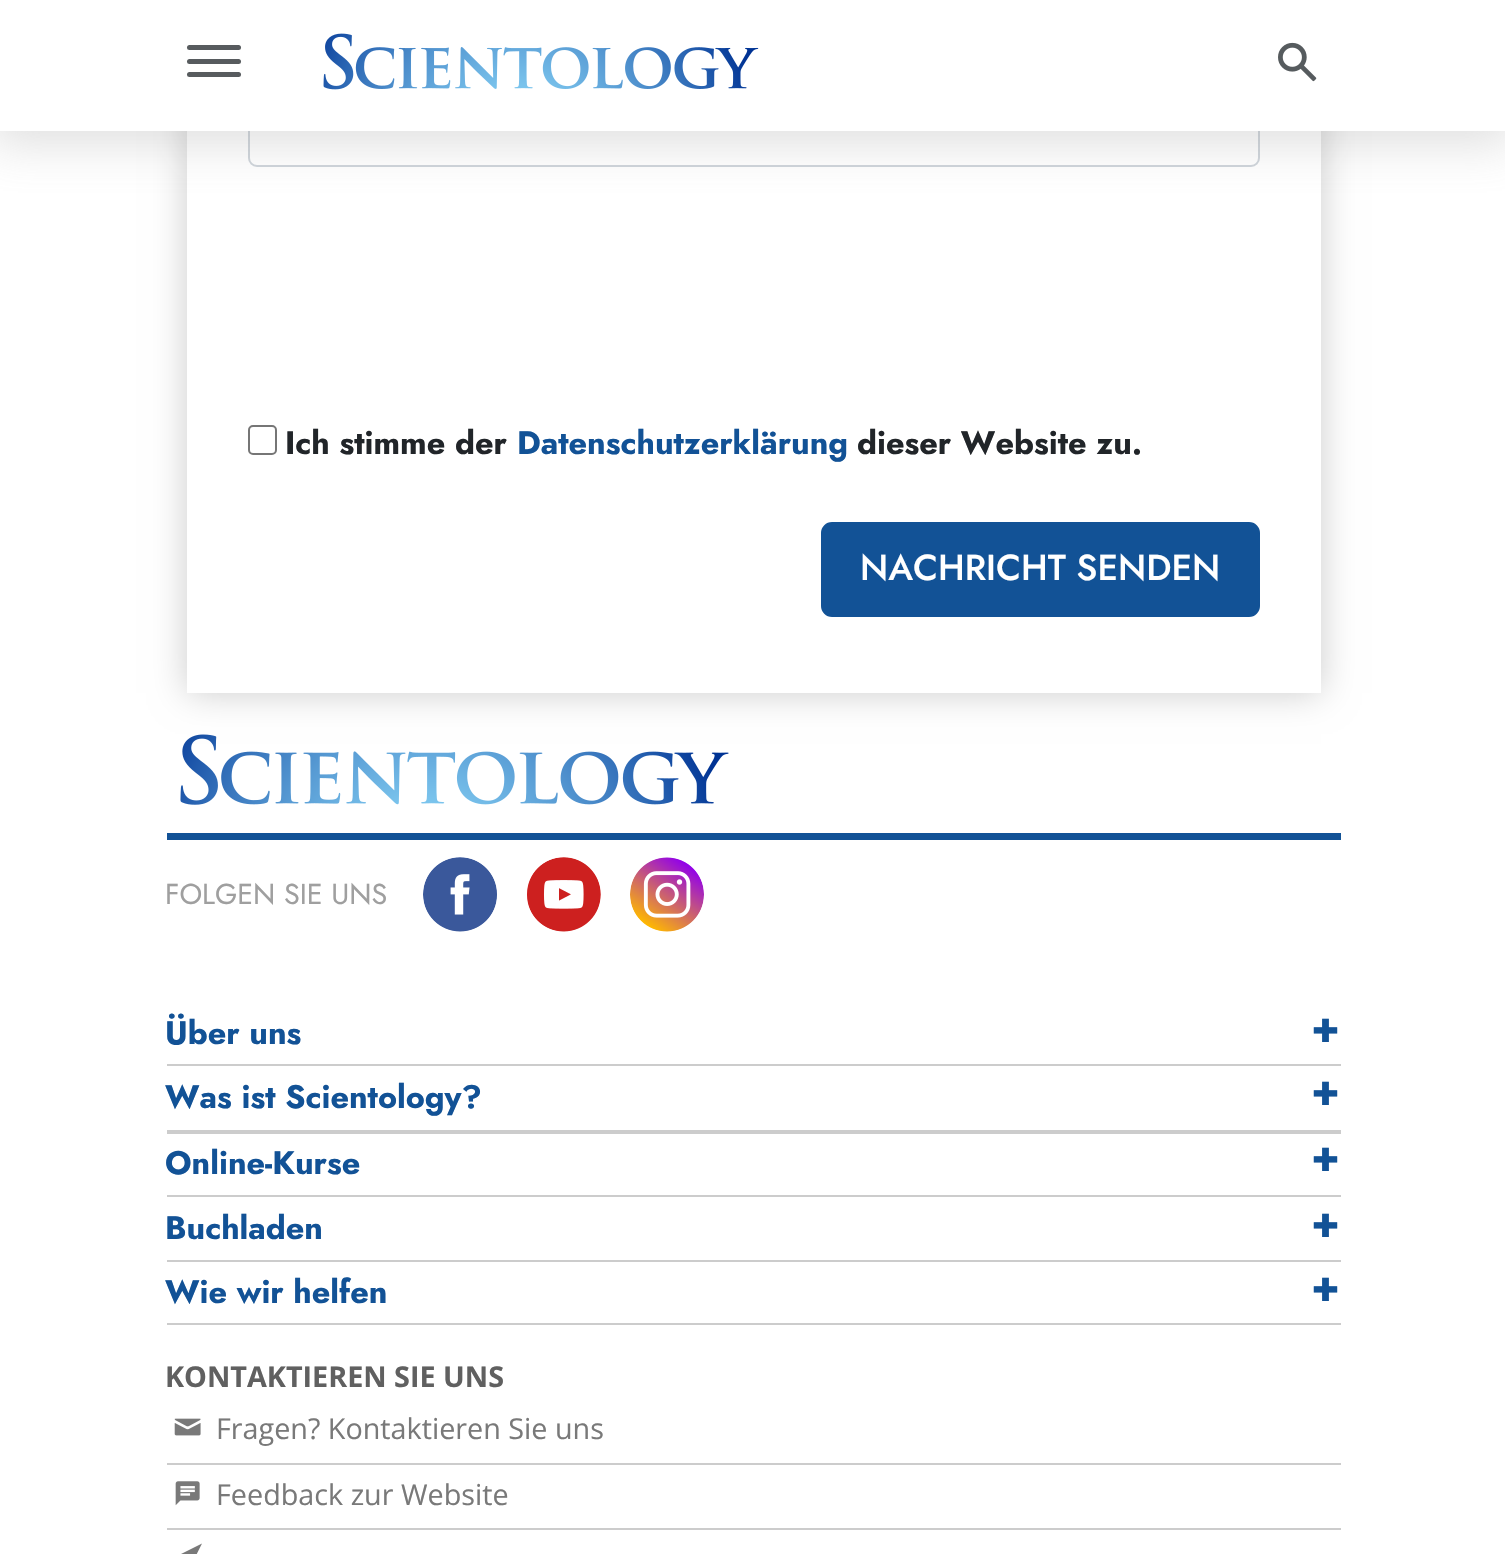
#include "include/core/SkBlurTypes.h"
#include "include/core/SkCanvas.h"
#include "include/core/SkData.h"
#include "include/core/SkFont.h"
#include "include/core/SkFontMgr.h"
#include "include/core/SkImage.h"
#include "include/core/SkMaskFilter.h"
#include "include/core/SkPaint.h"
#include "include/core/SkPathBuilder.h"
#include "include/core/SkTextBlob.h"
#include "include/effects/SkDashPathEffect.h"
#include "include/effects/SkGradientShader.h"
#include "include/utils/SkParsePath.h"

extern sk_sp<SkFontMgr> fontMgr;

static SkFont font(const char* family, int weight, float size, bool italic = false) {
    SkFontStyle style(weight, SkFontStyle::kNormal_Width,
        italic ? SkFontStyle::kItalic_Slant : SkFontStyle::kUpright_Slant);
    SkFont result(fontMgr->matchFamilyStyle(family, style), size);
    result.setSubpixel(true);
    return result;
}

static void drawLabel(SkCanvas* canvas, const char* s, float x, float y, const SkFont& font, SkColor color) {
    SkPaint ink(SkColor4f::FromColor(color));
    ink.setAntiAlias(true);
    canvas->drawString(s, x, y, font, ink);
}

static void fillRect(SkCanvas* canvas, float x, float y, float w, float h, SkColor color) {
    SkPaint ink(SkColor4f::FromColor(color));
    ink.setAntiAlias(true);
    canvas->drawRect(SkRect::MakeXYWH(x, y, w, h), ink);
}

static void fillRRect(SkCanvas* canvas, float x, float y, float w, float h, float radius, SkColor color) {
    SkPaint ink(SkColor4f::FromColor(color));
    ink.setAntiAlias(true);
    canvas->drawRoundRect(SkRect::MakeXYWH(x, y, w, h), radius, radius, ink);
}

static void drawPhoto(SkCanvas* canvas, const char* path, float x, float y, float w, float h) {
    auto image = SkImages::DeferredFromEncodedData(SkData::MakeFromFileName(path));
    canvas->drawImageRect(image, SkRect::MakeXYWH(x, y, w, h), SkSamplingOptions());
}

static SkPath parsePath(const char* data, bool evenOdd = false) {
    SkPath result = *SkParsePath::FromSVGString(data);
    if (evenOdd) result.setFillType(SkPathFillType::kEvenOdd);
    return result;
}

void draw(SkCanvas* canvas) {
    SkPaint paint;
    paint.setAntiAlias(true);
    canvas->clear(0xFFFFFFFF);
    drawPhoto(canvas, "assets/img3.png", 180, 734, 549, 71);
    canvas->save();
    canvas->clipPath(parsePath("M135 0H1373V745H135ZM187-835H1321V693H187Z", true), true);
    paint.setColor(0x33000000);
    paint.setMaskFilter(SkMaskFilter::MakeBlur(kNormal_SkBlurStyle, 17));
    canvas->drawRect(SkRect::MakeXYWH(187, -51, 1134, 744), paint);
    paint.setMaskFilter(nullptr);
    canvas->restore();
    paint.setStroke(true);
    paint.setStrokeWidth(2);
    paint.setColor(0xFFCED4DA);
    canvas->drawRoundRect(SkRect::MakeXYWH(249, -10, 1010, 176), 8, 8, paint);
    paint.setStroke(false);
    paint.setColor(0x4D949494);
    paint.setMaskFilter(SkMaskFilter::MakeBlur(kNormal_SkBlurStyle, 22.5f));
    canvas->drawRect(SkRect::MakeXYWH(-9, -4, 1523, 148), paint);
    paint.setMaskFilter(nullptr);
    fillRect(canvas, 0, 0, 1505, 131, 0xFFFFFFFF);
    fillRRect(canvas, 187, 45, 54, 5, 2.5f, 0xFF575B5E);
    fillRRect(canvas, 187, 59, 54, 5, 2.5f, 0xFF575B5E);
    fillRRect(canvas, 187, 72, 54, 5, 2.5f, 0xFF575B5E);
    drawPhoto(canvas, "assets/img1.png", 323, 33, 436, 57);
    drawPhoto(canvas, "assets/img2.png", 1278, 42, 39, 40);
    paint.setStroke(true);
    paint.setColor(0xFF767676);
    canvas->drawRoundRect(SkRect::MakeXYWH(249, 426, 27, 28), 4, 4, paint);
    SkFont font1 = font("Jost", 700, 32.4f);
    drawLabel(canvas, "Ich stimme der", 285, 454, font1, 0xFF212529);
    drawLabel(canvas, "Datenschutzerklärung", 517, 454, font1, 0xFF125296);
    drawLabel(canvas, "dieser Website zu.", 857, 454, font1, 0xFF212529);
    paint.setStroke(false);
    paint.setColor(0xFF125296);
    canvas->drawRoundRect(SkRect::MakeXYWH(822, 523, 437, 93), 10, 10, paint);
    paint.setStroke(true);
    canvas->drawRoundRect(SkRect::MakeXYWH(822, 523, 437, 93), 10, 10, paint);
    SkFont font2 = font("Jost", 500, 36);
    drawLabel(canvas, "NACHRICHT SENDEN", 860, 580, font2, 0xFFFFFFFF);
    fillRect(canvas, 167, 833, 1174, 7, 0xFF125296);
    SkFont font3 = font("Jost", 400, 28.75f);
    drawLabel(canvas, "FOLGEN SIE UNS", 165, 904, font3, 0xFF9F9F9F);
    drawPhoto(canvas, "assets/img4.png", 423, 857, 74, 75);
    drawPhoto(canvas, "assets/img5.png", 527, 857, 74, 75);
    drawPhoto(canvas, "assets/img6.png", 630, 857, 74, 75);
    fillRect(canvas, 167, 1064, 1174, 2, 0xFFCCCCCC);
    drawLabel(canvas, "Über uns", 165, 1044, font1, 0xFF125296);
    SkFont font4 = font("Jost", 700, 43);
    drawLabel(canvas, "+", 1311, 1042, font4, 0xFF125296);
    fillRect(canvas, 167, 1130, 1174, 4, 0xFFCCCCCC);
    drawLabel(canvas, "Was ist Scientology?", 165, 1108, font1, 0xFF125296);
    drawLabel(canvas, "+", 1311, 1105, font4, 0xFF125296);
    fillRect(canvas, 167, 1195, 1174, 2, 0xFFCCCCCC);
    drawLabel(canvas, "Online-Kurse", 165, 1174, font1, 0xFF125296);
    drawLabel(canvas, "+", 1311, 1171, font4, 0xFF125296);
    fillRect(canvas, 167, 1260, 1174, 2, 0xFFCCCCCC);
    drawLabel(canvas, "Buchladen", 165, 1239, font1, 0xFF125296);
    drawLabel(canvas, "+", 1311, 1237, font4, 0xFF125296);
    fillRect(canvas, 167, 1323, 1174, 2, 0xFFCCCCCC);
    drawLabel(canvas, "Wie wir helfen", 165, 1303, font1, 0xFF125296);
    drawLabel(canvas, "+", 1311, 1301, font4, 0xFF125296);
    SkFont font5 = font("Open Sans", 700, 28.75f);
    drawLabel(canvas, "KONTAKTIEREN SIE UNS", 165, 1387, font5, 0xFF606060);
    fillRect(canvas, 167, 1463, 1174, 2, 0xFFCCCCCC);
    drawPhoto(canvas, "assets/img7.png", 174, 1418, 27, 18);
    SkFont font6 = font("Open Sans", 400, 28.75f);
    drawLabel(canvas, "Fragen? Kontaktieren Sie uns", 216, 1439, font6, 0xFF797979);
    fillRect(canvas, 167, 1528, 1174, 2, 0xFFCCCCCC);
    drawPhoto(canvas, "assets/img8.png", 175, 1481, 25, 25);
    drawLabel(canvas, "Feedback zur Website", 216, 1505, font6, 0xFF797979);
    paint.setStroke(false);
    paint.setColor(0xFF797979);
    canvas->drawPath(parsePath("M187.5 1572.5V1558H173L202 1543.5Z"), paint);
}
